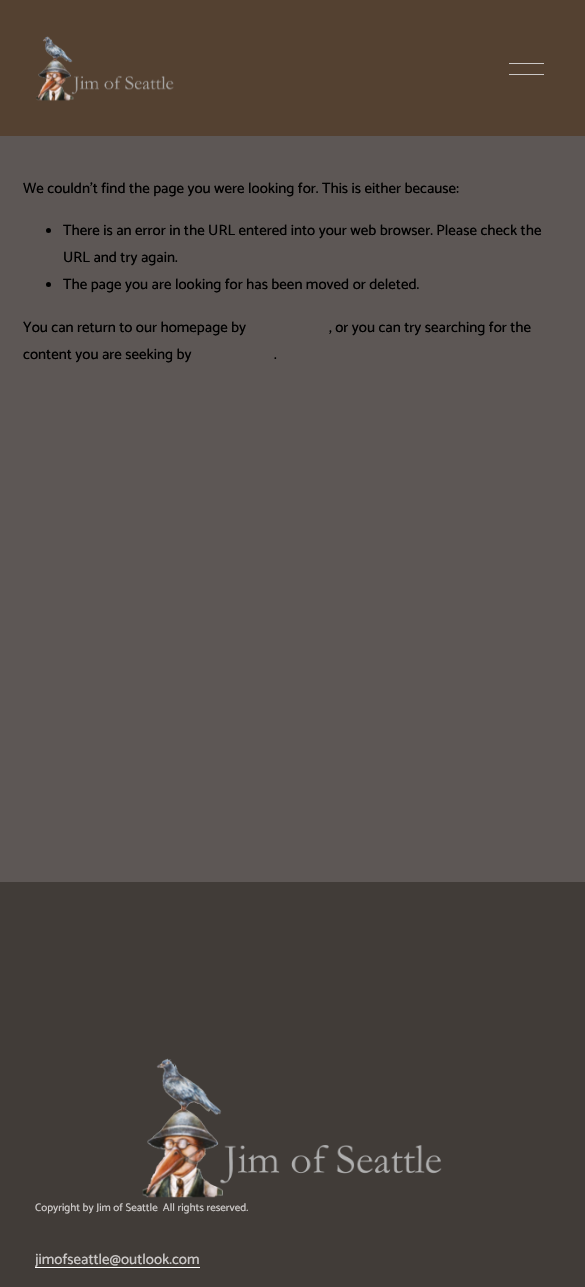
#include "include/core/SkBlurTypes.h"
#include "include/core/SkCanvas.h"
#include "include/core/SkData.h"
#include "include/core/SkFont.h"
#include "include/core/SkFontMgr.h"
#include "include/core/SkImage.h"
#include "include/core/SkMaskFilter.h"
#include "include/core/SkPaint.h"
#include "include/core/SkPathBuilder.h"
#include "include/core/SkTextBlob.h"
#include "include/effects/SkDashPathEffect.h"
#include "include/effects/SkGradientShader.h"
#include "include/utils/SkParsePath.h"

extern sk_sp<SkFontMgr> fontMgr;

static SkFont font(const char* family, int weight, float size, bool italic = false) {
    SkFontStyle style(weight, SkFontStyle::kNormal_Width,
        italic ? SkFontStyle::kItalic_Slant : SkFontStyle::kUpright_Slant);
    SkFont result(fontMgr->matchFamilyStyle(family, style), size);
    result.setSubpixel(true);
    return result;
}

static void drawLabel(SkCanvas* canvas, const char* s, float x, float y, const SkFont& font, SkColor color) {
    SkPaint ink(SkColor4f::FromColor(color));
    ink.setAntiAlias(true);
    canvas->drawString(s, x, y, font, ink);
}

static void fillRect(SkCanvas* canvas, float x, float y, float w, float h, SkColor color) {
    SkPaint ink(SkColor4f::FromColor(color));
    ink.setAntiAlias(true);
    canvas->drawRect(SkRect::MakeXYWH(x, y, w, h), ink);
}

static void drawPhoto(SkCanvas* canvas, const char* path, float x, float y, float w, float h) {
    auto image = SkImages::DeferredFromEncodedData(SkData::MakeFromFileName(path));
    canvas->drawImageRect(image, SkRect::MakeXYWH(x, y, w, h), SkSamplingOptions());
}

void draw(SkCanvas* canvas) {
    SkPaint paint;
    paint.setAntiAlias(true);
    canvas->clear(0xFF5D5755);
    fillRect(canvas, 0, 0, 585, 136, 0xFF544131);
    drawPhoto(canvas, "assets/img1.png", 36, 36, 138, 65);
    fillRect(canvas, 509, 63, 35, 1, 0xFFCBC8C7);
    fillRect(canvas, 509, 74, 35, 1, 0xFFCBC8C7);
    SkFont font1 = font("Catamaran", 500, 14.9f);
    drawLabel(canvas, "We couldn't find the page you were looking for. This is either because:", 23, 193, font1, 0xFF000000);
    paint.setColor(0xFF000000);
    canvas->drawCircle(48.5f, 230.5f, 2.5f, paint);
    drawLabel(canvas, "There is an error in the URL entered into your web browser. Please check the", 63, 235, font1, 0xFF000000);
    drawLabel(canvas, "URL and try again.", 63, 262, font1, 0xFF000000);
    canvas->drawCircle(48.5f, 284.5f, 2.5f, paint);
    drawLabel(canvas, "The page you are looking for has been moved or deleted.", 63, 289, font1, 0xFF000000);
    drawLabel(canvas, "You can return to our homepage by", 23, 332, font1, 0xFF000000);
    drawLabel(canvas, ", or you can try searching for the", 329, 332, font1, 0xFF000000);
    drawLabel(canvas, "content you are seeking by", 23, 359, font1, 0xFF000000);
    drawLabel(canvas, ".", 274, 359, font1, 0xFF000000);
    fillRect(canvas, 0, 882, 585, 405, 0xFF413C38);
    drawPhoto(canvas, "assets/img2.png", 142, 1058, 300, 140);
    SkFont font2 = font("Catamaran", 500, 11);
    drawLabel(canvas, "Copyright by Jim of Seattle  All rights reserved.", 35, 1211, font2, 0xFFCBC8C7);
    fillRect(canvas, 35, 1267, 165, 1, 0xFFFFFFFF);
    drawLabel(canvas, "jimofseattle@outlook.com", 35, 1264, font1, 0xFFCBC8C7);
}
